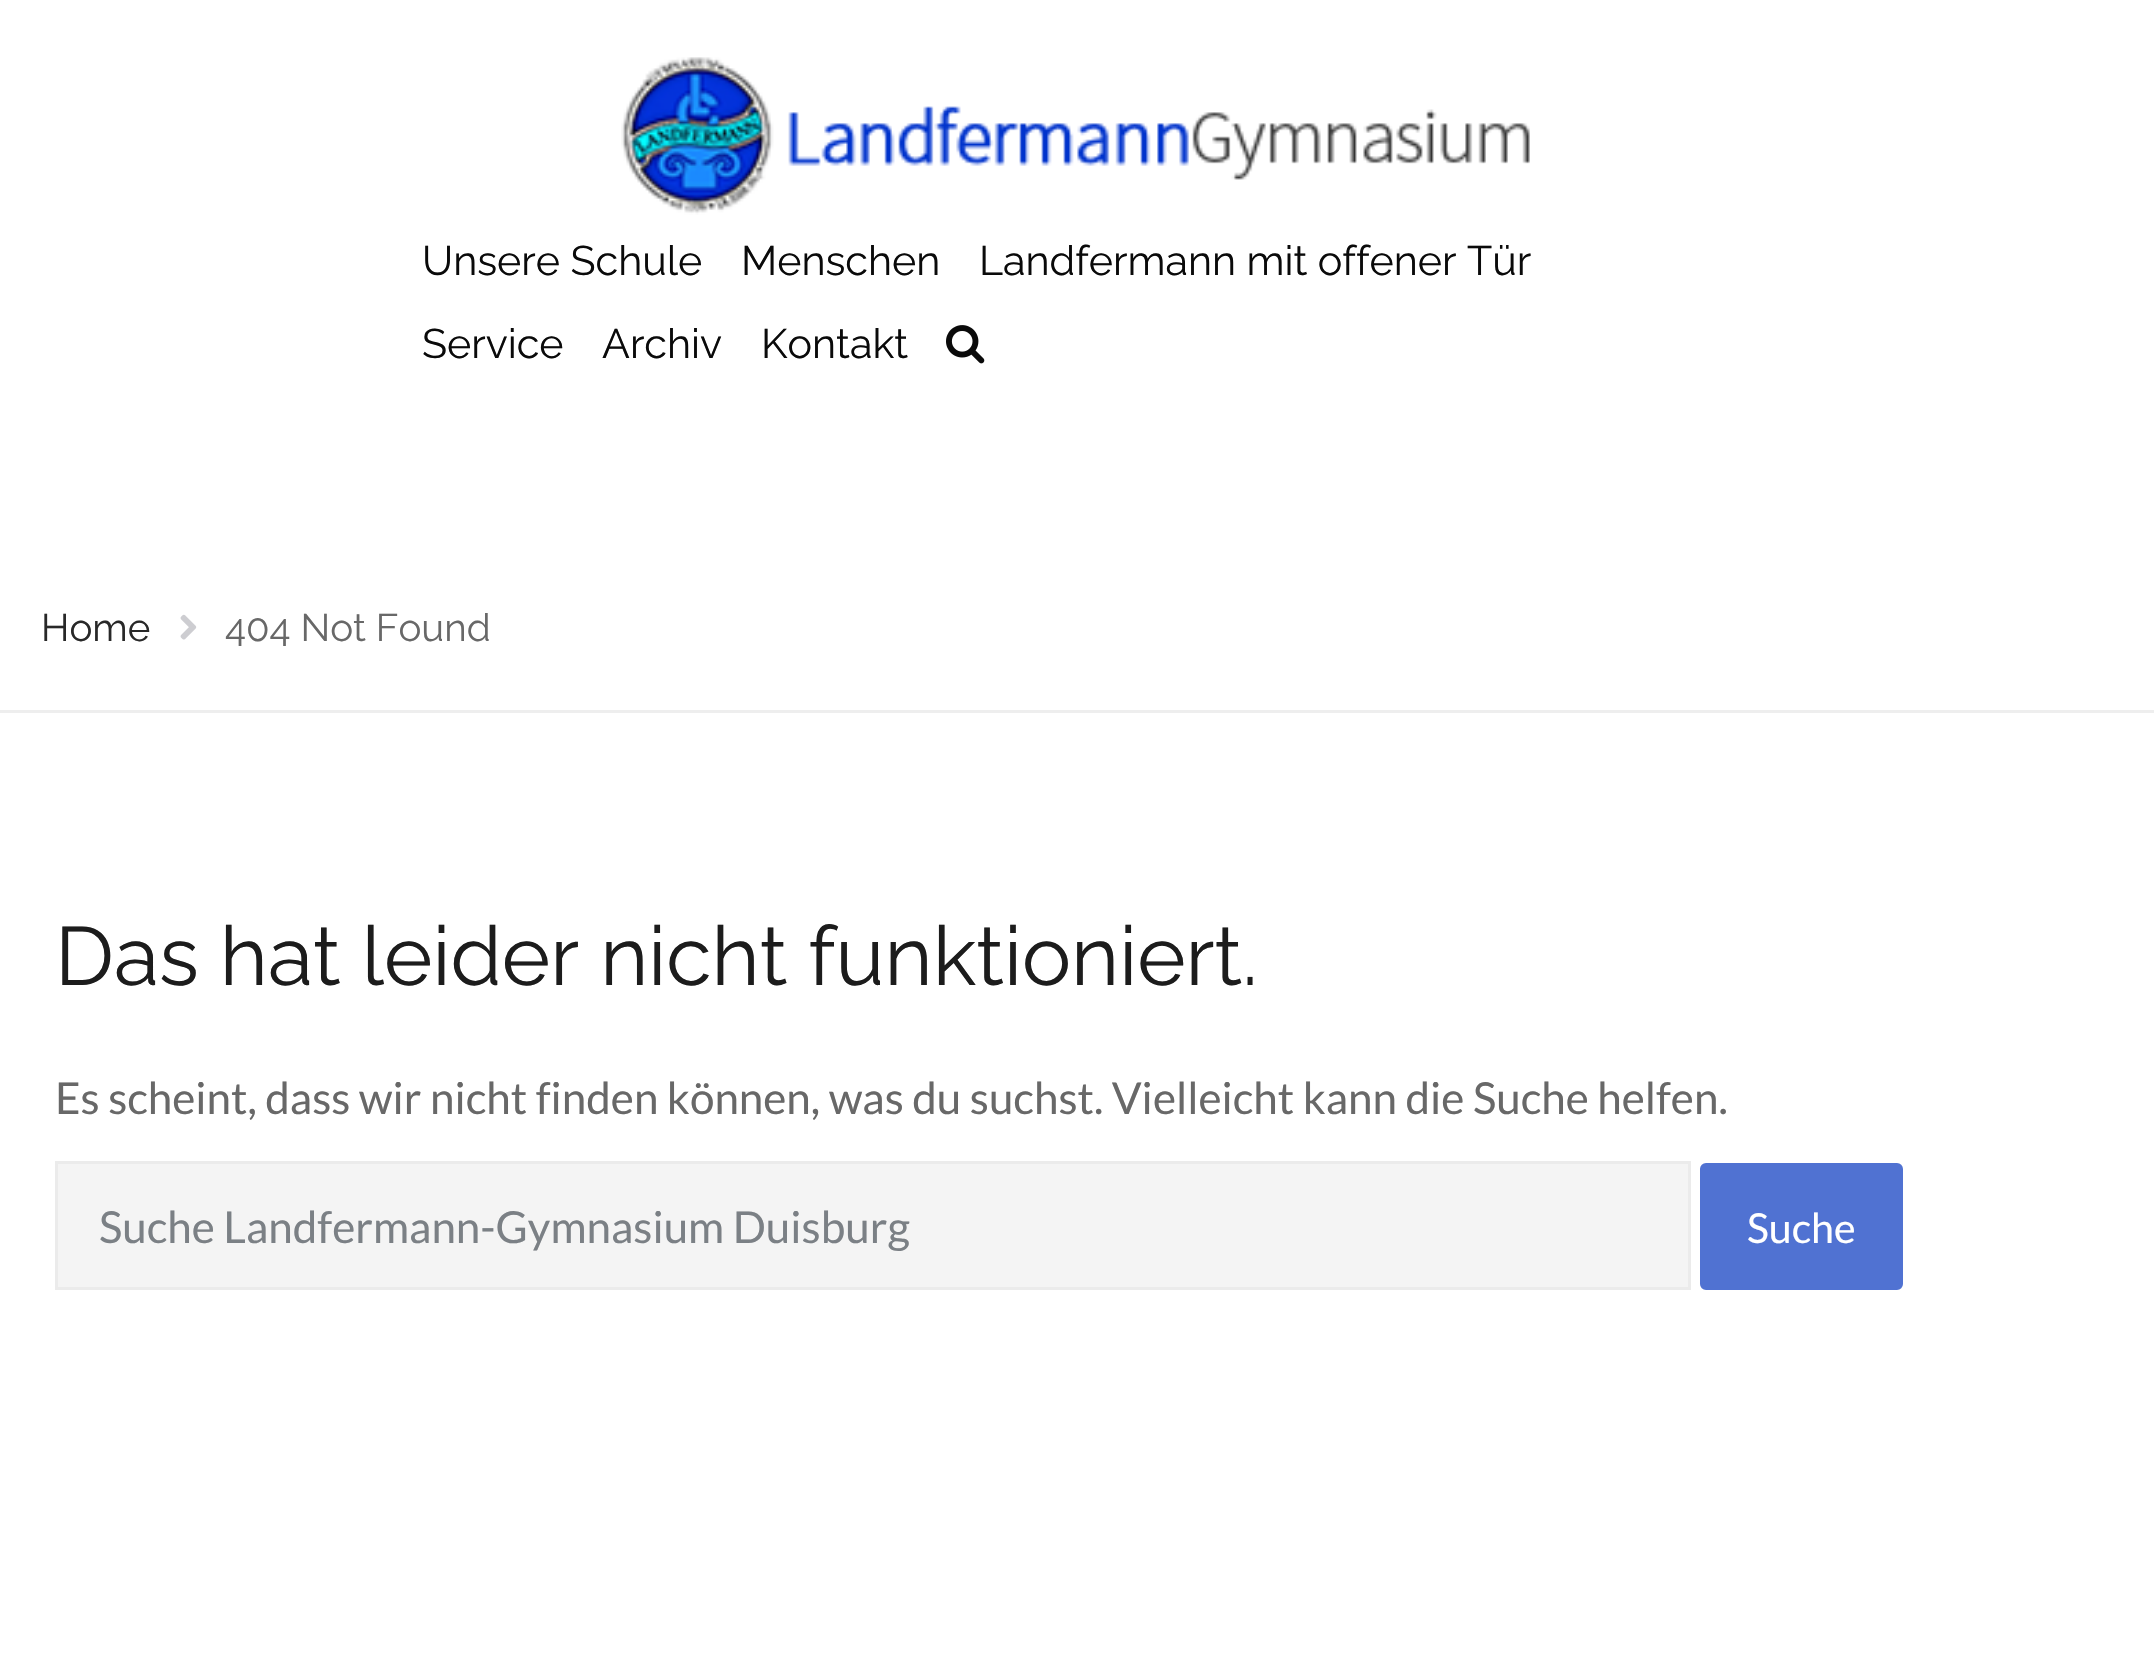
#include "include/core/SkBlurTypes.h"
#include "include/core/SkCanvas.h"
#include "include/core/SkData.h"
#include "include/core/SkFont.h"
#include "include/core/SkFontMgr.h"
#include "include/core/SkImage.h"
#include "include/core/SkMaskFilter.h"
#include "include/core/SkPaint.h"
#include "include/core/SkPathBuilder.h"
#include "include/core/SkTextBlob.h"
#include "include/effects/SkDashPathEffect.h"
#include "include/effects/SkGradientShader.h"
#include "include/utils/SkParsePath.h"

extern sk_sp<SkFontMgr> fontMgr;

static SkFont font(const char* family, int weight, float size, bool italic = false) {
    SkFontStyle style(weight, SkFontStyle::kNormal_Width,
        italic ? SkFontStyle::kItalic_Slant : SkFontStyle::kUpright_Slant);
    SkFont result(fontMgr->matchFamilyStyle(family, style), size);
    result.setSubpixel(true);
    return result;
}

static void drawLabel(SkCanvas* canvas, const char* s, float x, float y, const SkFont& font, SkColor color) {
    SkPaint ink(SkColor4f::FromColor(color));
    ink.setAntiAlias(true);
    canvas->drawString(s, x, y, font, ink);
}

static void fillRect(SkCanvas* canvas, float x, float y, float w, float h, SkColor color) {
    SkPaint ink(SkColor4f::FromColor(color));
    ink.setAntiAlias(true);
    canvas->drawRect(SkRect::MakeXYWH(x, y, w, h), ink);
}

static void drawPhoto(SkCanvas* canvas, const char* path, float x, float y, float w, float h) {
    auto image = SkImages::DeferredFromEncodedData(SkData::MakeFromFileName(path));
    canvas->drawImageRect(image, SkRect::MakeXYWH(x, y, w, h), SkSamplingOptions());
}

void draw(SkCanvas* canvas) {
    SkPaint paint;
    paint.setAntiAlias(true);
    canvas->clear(0xFFFFFFFF);
    drawPhoto(canvas, "assets/img1.png", 621, 57, 909, 158);
    SkFont font1 = font("Raleway", 400, 41.25f);
    drawLabel(canvas, "Unsere Schule", 422, 275, font1, 0xFF0A0A0A);
    drawLabel(canvas, "Menschen", 741, 275, font1, 0xFF0A0A0A);
    drawLabel(canvas, "Landfermann mit offener Tür", 979, 275, font1, 0xFF0A0A0A);
    drawLabel(canvas, "Service", 422, 358, font1, 0xFF0A0A0A);
    drawLabel(canvas, "Archiv", 602, 358, font1, 0xFF0A0A0A);
    drawLabel(canvas, "Kontakt", 761, 358, font1, 0xFF0A0A0A);
    drawPhoto(canvas, "assets/img2.png", 946, 325, 39, 39);
    fillRect(canvas, 0, 710, 2154, 3, 0xFFEEEEEE);
    SkFont font2 = font("Raleway", 400, 38.5f);
    drawLabel(canvas, "Home", 41, 641, font2, 0xFF282828);
    drawPhoto(canvas, "assets/img3.png", 180, 614, 17, 26);
    drawLabel(canvas, "404 Not Found", 225, 641, font2, 0xFF686868);
    SkFont font3 = font("Raleway", 400, 82.5f);
    drawLabel(canvas, "Das hat leider nicht funktioniert.", 55, 985, font3, 0xFF1C1C1C);
    SkFont font4 = font("Lato", 400, 44);
    drawLabel(canvas, "Es scheint, dass wir nicht finden können, was du suchst. Vielleicht kann die Suche helfen.", 55, 1114, font4, 0xFF686868);
    paint.setColor(0xFFF4F4F4);
    canvas->drawRect(SkRect::MakeXYWH(56.5f, 1162.5f, 1633, 126), paint);
    paint.setStroke(true);
    paint.setStrokeWidth(3);
    paint.setColor(0xFFEBEBEB);
    canvas->drawRect(SkRect::MakeXYWH(56.5f, 1162.5f, 1633, 126), paint);
    drawLabel(canvas, "Suche Landfermann-Gymnasium Duisburg", 99, 1243, font4, 0xFF7B8085);
    paint.setStroke(false);
    paint.setColor(0xFF5072D2);
    canvas->drawRoundRect(SkRect::MakeXYWH(1701.5f, 1164.5f, 200, 124), 4.5f, 4.5f, paint);
    paint.setStroke(true);
    canvas->drawRoundRect(SkRect::MakeXYWH(1701.5f, 1164.5f, 200, 124), 4.5f, 4.5f, paint);
    SkFont font5 = font("Lato", 400, 41.25f);
    drawLabel(canvas, "Suche", 1747, 1243, font5, 0xFFFFFFFF);
}
